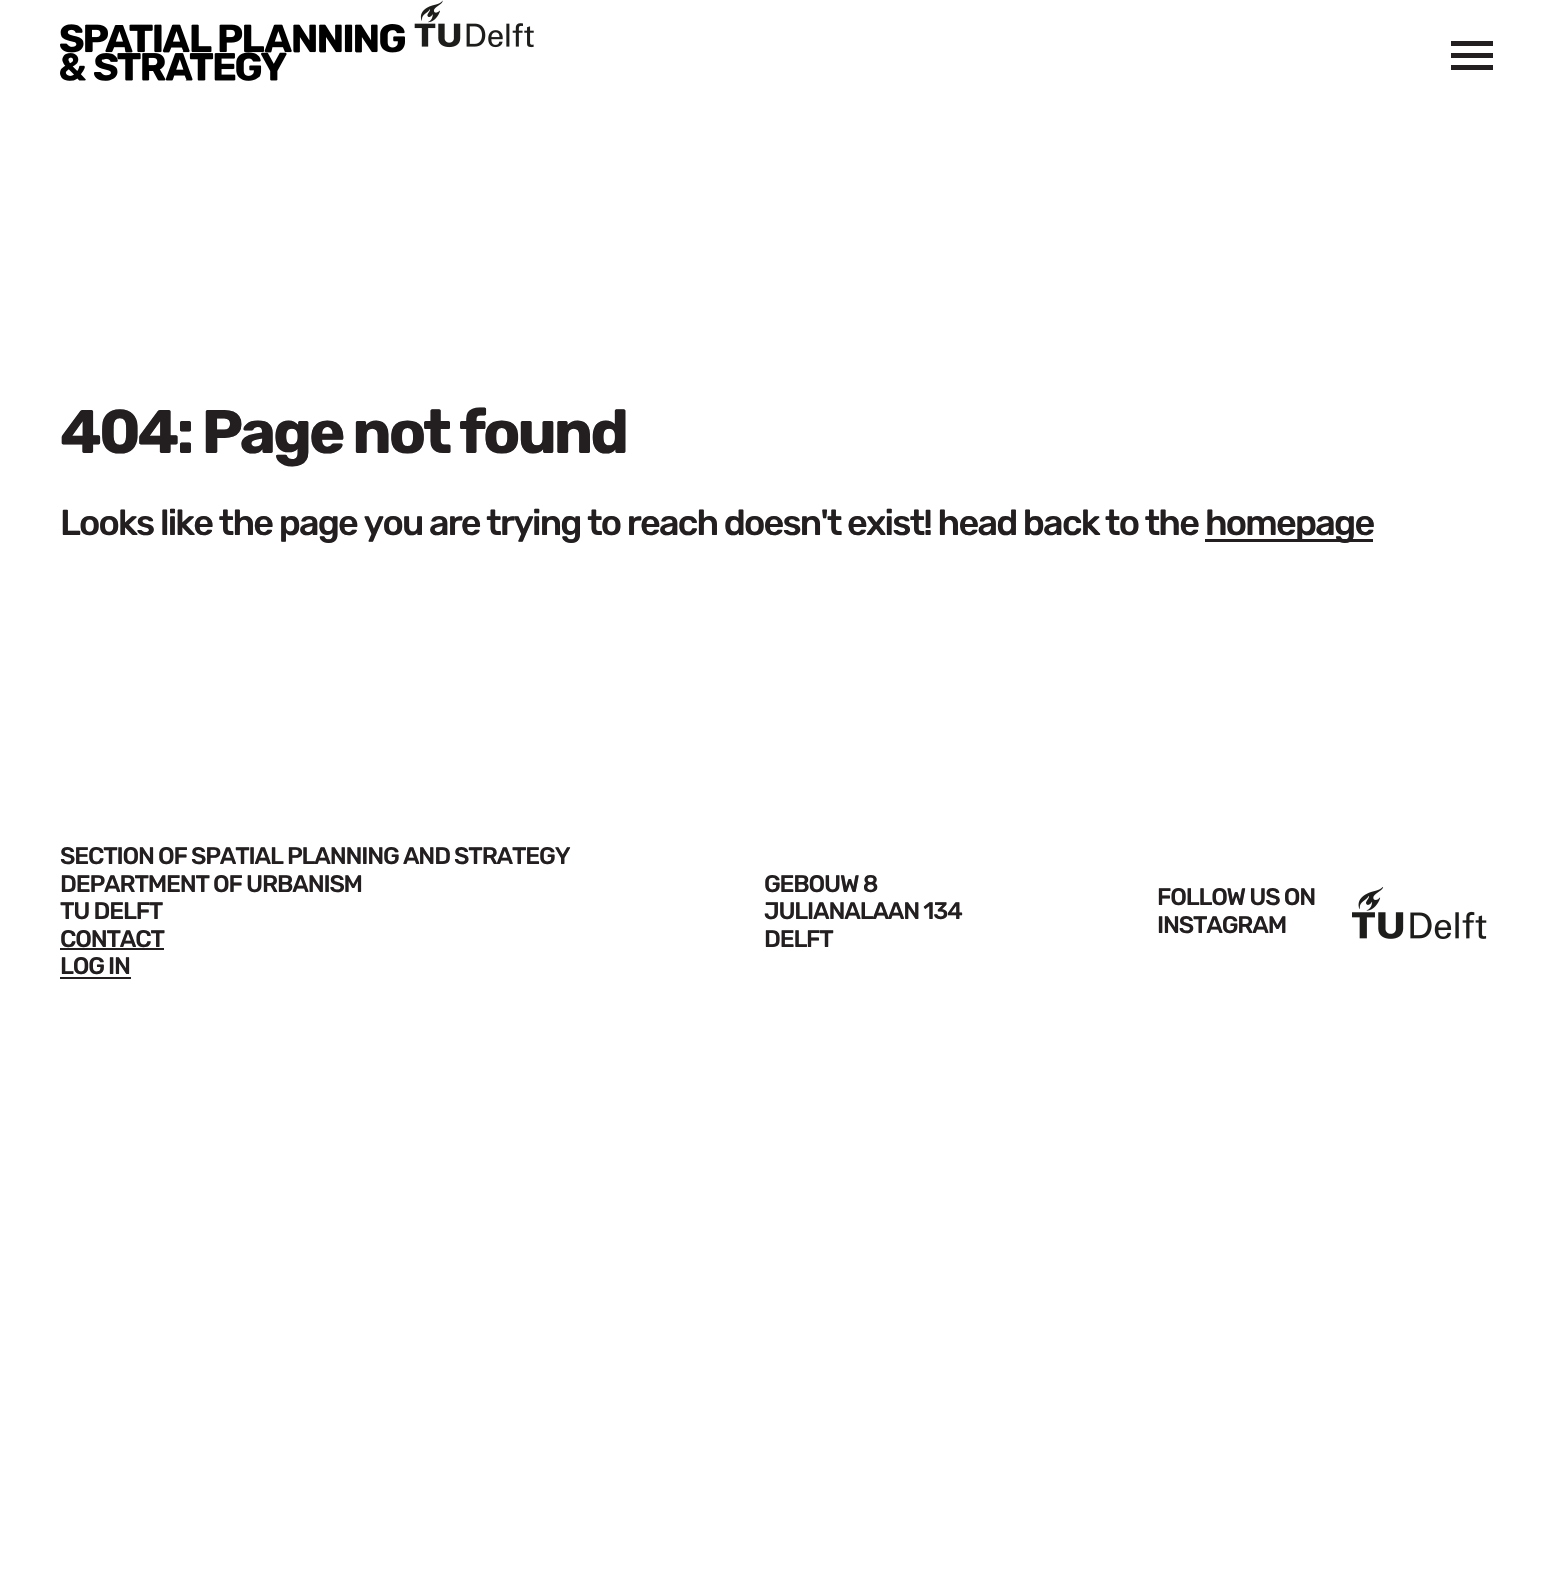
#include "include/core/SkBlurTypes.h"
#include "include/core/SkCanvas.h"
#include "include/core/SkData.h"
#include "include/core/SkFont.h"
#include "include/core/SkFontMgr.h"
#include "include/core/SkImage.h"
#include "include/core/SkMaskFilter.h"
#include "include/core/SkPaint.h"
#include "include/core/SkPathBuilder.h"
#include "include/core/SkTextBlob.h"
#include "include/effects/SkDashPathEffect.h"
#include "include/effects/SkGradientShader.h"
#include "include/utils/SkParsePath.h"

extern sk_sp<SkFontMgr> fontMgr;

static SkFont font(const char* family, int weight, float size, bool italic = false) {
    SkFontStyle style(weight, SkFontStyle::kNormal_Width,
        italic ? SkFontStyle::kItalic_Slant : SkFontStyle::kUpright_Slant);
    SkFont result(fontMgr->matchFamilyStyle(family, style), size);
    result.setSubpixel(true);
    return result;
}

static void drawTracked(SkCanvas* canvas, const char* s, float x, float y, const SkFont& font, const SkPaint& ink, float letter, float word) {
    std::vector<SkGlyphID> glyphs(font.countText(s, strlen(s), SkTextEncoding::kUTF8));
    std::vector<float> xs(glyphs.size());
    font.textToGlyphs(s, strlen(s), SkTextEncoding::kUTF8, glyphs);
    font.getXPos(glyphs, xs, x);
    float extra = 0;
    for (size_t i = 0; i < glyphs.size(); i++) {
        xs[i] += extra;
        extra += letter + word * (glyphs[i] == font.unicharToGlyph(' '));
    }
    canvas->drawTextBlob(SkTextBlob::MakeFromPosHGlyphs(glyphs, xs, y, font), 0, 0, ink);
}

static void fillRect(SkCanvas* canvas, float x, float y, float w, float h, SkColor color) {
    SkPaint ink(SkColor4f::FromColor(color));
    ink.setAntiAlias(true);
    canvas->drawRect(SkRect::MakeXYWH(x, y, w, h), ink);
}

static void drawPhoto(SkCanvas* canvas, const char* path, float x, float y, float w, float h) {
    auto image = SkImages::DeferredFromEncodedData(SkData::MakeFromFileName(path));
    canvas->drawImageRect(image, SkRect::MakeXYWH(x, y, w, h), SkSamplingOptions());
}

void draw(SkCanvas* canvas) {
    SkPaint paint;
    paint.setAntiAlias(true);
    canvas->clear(0xFFFFFFFF);
    drawPhoto(canvas, "assets/img1.png", 60, 24, 345, 57);
    drawPhoto(canvas, "assets/img2.png", 414, 0, 120, 48);
    fillRect(canvas, 1451, 41, 42, 5, 0xFF231F20);
    fillRect(canvas, 1451, 53, 42, 5, 0xFF231F20);
    fillRect(canvas, 1451, 65, 42, 5, 0xFF231F20);
    SkFont font1 = font("Rubik", 700, 61.5f);
    paint.setColor(0xFF231F20);
    drawTracked(canvas, "404: Page not found", 60, 453, font1, paint, -3.1f, 0);
    SkFont font2 = font("Rubik", 500, 36);
    drawTracked(canvas, "Looks like the page you are trying to reach doesn't exist! head back to the", 60, 535, font2, paint, -1.8f, 0);
    fillRect(canvas, 1205, 539, 168, 3, 0xFF231F20);
    drawTracked(canvas, "homepage", 1205, 535, font2, paint, -1.8f, 0);
    SkFont font3 = font("Rubik", 500, 24);
    drawTracked(canvas, "SECTION OF SPATIAL PLANNING AND STRATEGY", 60, 864, font3, paint, -1.2f, 0);
    drawTracked(canvas, "DEPARTMENT OF URBANISM", 60, 892, font3, paint, -1.2f, 0);
    drawTracked(canvas, "TU DELFT", 60, 919, font3, paint, -1.2f, 0);
    drawTracked(canvas, "CONTACT", 60, 947, font3, paint, -1.2f, 0);
    fillRect(canvas, 60, 948, 104, 2, 0xFF231F20);
    drawTracked(canvas, "LOG IN", 60, 974, font3, paint, -1.2f, 0);
    fillRect(canvas, 60, 977, 71, 2, 0xFF231F20);
    drawTracked(canvas, "GEBOUW 8", 764, 892, font3, paint, -1.2f, 0);
    drawTracked(canvas, "JULIANALAAN 134", 764, 919, font3, paint, -1.2f, 0);
    drawTracked(canvas, "DELFT", 764, 947, font3, paint, -1.2f, 0);
    drawTracked(canvas, "FOLLOW US ON", 1157, 905, font3, paint, -1.2f, 0);
    drawTracked(canvas, "INSTAGRAM", 1157, 933, font3, paint, -1.2f, 0);
    drawPhoto(canvas, "assets/img3.png", 1352, 887, 135, 52);
}
